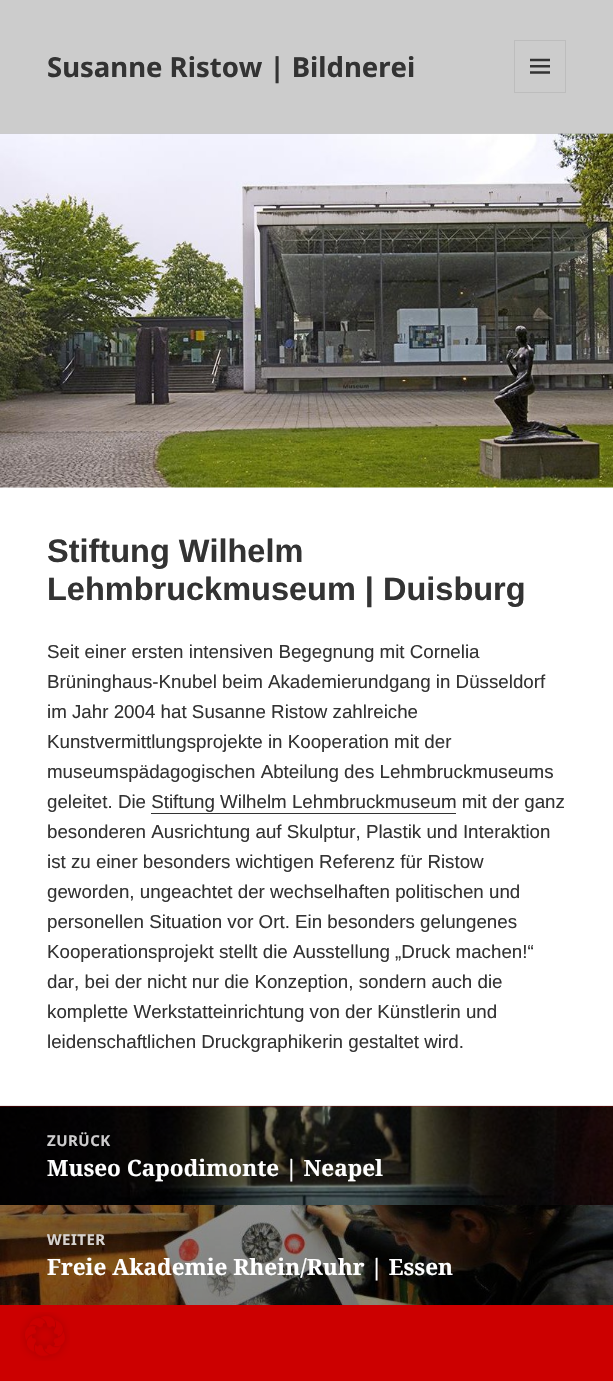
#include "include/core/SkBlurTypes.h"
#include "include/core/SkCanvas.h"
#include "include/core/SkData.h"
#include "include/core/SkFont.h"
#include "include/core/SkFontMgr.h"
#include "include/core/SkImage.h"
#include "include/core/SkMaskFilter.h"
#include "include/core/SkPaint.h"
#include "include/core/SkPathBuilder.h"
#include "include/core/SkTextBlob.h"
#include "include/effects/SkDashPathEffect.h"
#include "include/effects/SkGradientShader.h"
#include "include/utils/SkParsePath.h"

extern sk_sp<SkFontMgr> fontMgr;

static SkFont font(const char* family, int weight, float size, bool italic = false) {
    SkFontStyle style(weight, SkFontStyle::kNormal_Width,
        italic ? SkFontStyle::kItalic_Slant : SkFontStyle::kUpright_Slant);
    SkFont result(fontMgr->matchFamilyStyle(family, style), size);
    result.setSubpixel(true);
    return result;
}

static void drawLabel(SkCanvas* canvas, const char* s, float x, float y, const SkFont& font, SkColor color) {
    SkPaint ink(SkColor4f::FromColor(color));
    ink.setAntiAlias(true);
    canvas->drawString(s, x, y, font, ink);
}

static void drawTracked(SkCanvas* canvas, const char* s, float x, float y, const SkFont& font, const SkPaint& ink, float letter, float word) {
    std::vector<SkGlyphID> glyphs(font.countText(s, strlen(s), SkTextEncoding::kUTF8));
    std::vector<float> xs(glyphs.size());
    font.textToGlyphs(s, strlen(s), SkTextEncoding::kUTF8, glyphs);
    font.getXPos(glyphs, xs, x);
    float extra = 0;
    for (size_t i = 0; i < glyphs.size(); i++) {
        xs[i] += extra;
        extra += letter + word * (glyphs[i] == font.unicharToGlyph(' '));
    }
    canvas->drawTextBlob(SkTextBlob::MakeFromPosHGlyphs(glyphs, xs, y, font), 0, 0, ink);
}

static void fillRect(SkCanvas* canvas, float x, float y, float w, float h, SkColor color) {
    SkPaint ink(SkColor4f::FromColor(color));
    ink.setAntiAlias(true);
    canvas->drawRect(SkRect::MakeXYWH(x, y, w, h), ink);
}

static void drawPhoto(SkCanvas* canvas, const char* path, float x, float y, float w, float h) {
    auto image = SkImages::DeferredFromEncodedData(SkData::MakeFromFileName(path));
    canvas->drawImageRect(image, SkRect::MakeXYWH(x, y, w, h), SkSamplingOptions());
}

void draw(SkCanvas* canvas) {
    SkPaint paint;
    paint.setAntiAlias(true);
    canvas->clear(0xFFCC0000);
    fillRect(canvas, 0, 0, 613, 133, 0xFFCCCCCC);
    fillRect(canvas, 0, 133, 613, 1, 0xFFBDBDBD);
    SkFont font1 = font("Noto Sans", 700, 27.5f);
    drawLabel(canvas, "Susanne Ristow | Bildnerei", 47, 77, font1, 0xFF333333);
    paint.setStroke(true);
    paint.setStrokeWidth(1);
    paint.setColor(0xFFBDBDBD);
    canvas->drawRect(SkRect::MakeXYWH(514.5f, 40.5f, 51, 52), paint);
    drawPhoto(canvas, "assets/img1.png", 530, 58, 20, 16);
    fillRect(canvas, 0, 487, 613, 618, 0xFFFFFFFF);
    drawPhoto(canvas, "assets/img2.png", 0, 133, 613, 355);
    SkFont font2 = font("Liberation Sans", 700, 32.5f);
    drawLabel(canvas, "Stiftung Wilhelm", 47, 562, font2, 0xFF333333);
    drawLabel(canvas, "Lehmbruckmuseum | Duisburg", 47, 600, font2, 0xFF333333);
    SkFont font3 = font("Liberation Sans", 400, 18.75f);
    drawLabel(canvas, "Seit einer ersten intensiven Begegnung mit Cornelia", 47, 658, font3, 0xFF333333);
    drawLabel(canvas, "Brüninghaus-Knubel beim Akademierundgang in Düsseldorf", 47, 688, font3, 0xFF333333);
    drawLabel(canvas, "im Jahr 2004 hat Susanne Ristow zahlreiche", 47, 718, font3, 0xFF333333);
    drawLabel(canvas, "Kunstvermittlungsprojekte in Kooperation mit der", 47, 748, font3, 0xFF333333);
    drawLabel(canvas, "museumspädagogischen Abteilung des Lehmbruckmuseums", 47, 778, font3, 0xFF333333);
    drawLabel(canvas, "geleitet. Die Stiftung Wilhelm Lehmbruckmuseum mit der ganz", 47, 808, font3, 0xFF333333);
    fillRect(canvas, 151, 813, 305, 1, 0xFF333333);
    drawLabel(canvas, "besonderen Ausrichtung auf Skulptur, Plastik und Interaktion", 47, 838, font3, 0xFF333333);
    drawLabel(canvas, "ist zu einer besonders wichtigen Referenz für Ristow", 47, 868, font3, 0xFF333333);
    drawLabel(canvas, "geworden, ungeachtet der wechselhaften politischen und", 47, 898, font3, 0xFF333333);
    drawLabel(canvas, "personellen Situation vor Ort. Ein besonders gelungenes", 47, 928, font3, 0xFF333333);
    drawLabel(canvas, "Kooperationsprojekt stellt die Ausstellung „Druck machen!“", 47, 958, font3, 0xFF333333);
    drawLabel(canvas, "dar, bei der nicht nur die Konzeption, sondern auch die", 47, 988, font3, 0xFF333333);
    drawLabel(canvas, "komplette Werkstatteinrichtung von der Künstlerin und", 47, 1018, font3, 0xFF333333);
    drawLabel(canvas, "leidenschaftlichen Druckgraphikerin gestaltet wird.", 47, 1048, font3, 0xFF333333);
    fillRect(canvas, 0, 1105, 613, 1, 0xFFEBEBEB);
    drawPhoto(canvas, "assets/img3.png", 0, 1106, 613, 99);
    SkFont font4 = font("Noto Sans", 700, 15);
    paint.setStroke(false);
    paint.setColor(0xFFCDCCCD);
    drawTracked(canvas, "ZURÜCK", 47, 1146, font4, paint, 0.5f, 0);
    SkFont font5 = font("Noto Serif", 700, 22.5f);
    drawLabel(canvas, "Museo Capodimonte | Neapel", 47, 1176, font5, 0xFFFFFFFF);
    drawPhoto(canvas, "assets/img4.png", 0, 1205, 613, 100);
    paint.setColor(0xFFD7D3CF);
    drawTracked(canvas, "WEITER", 47, 1245, font4, paint, 0.5f, 0);
    drawLabel(canvas, "Freie Akademie Rhein/Ruhr | Essen", 47, 1275, font5, 0xFFFFFFFF);
    drawPhoto(canvas, "assets/img5.png", 20, 1312, 50, 49);
}
